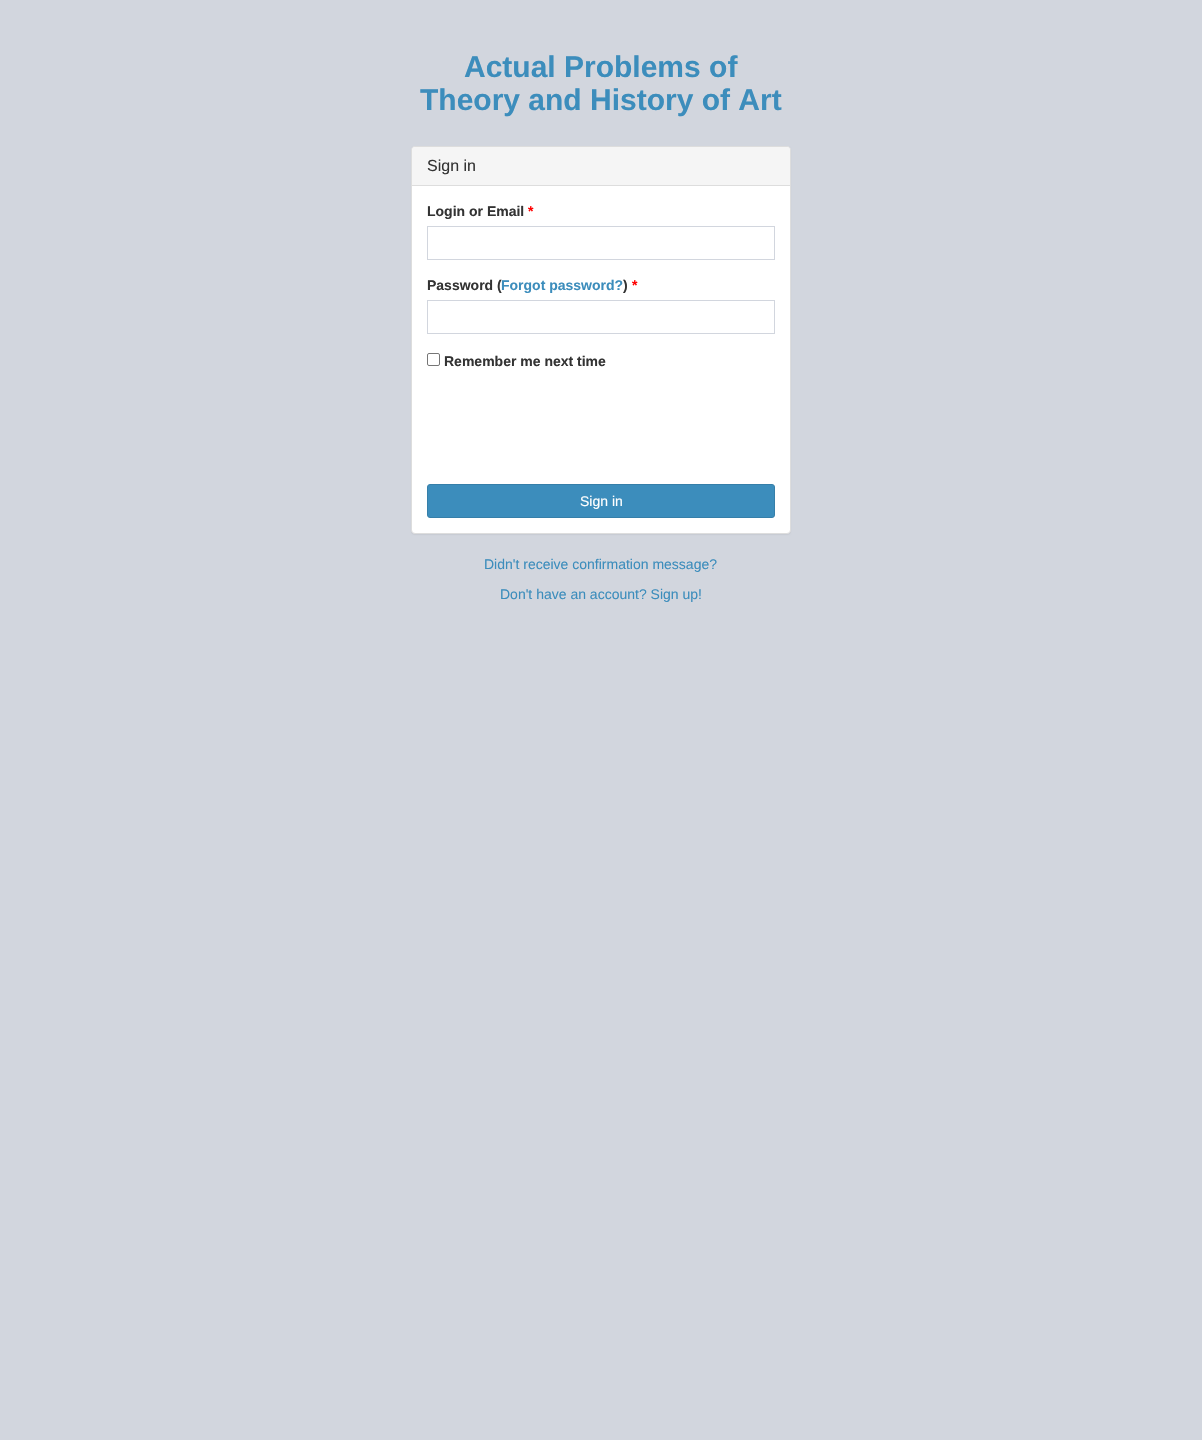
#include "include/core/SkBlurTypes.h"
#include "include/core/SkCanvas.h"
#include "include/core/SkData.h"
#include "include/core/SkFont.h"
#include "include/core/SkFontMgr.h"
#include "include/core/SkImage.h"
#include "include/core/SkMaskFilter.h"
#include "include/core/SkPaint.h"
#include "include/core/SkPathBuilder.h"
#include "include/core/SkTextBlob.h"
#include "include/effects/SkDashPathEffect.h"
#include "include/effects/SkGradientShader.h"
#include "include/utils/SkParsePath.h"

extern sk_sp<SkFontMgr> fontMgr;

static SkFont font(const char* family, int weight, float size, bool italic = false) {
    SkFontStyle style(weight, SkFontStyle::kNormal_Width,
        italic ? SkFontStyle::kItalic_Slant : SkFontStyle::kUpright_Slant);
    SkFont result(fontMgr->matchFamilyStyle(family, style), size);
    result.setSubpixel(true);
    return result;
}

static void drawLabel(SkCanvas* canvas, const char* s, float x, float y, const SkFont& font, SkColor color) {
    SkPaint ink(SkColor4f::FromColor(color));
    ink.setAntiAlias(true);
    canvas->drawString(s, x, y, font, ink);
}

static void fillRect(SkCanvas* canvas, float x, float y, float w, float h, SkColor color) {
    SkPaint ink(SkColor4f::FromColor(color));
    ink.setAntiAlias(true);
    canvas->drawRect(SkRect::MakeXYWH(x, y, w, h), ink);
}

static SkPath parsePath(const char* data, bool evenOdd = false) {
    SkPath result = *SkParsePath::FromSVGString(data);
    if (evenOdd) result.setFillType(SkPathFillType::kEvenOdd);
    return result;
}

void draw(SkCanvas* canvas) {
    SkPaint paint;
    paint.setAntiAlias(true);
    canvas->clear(0xFFD2D6DE);
    SkFont font1 = font("Liberation Sans", 700, 30);
    drawLabel(canvas, "Actual Problems of", 464, 77, font1, 0xFF3C8DBC);
    drawLabel(canvas, "Theory and History of Art", 420, 110, font1, 0xFF3C8DBC);
    paint.setColor(0x0D000000);
    paint.setMaskFilter(SkMaskFilter::MakeBlur(kNormal_SkBlurStyle, 0.5f));
    canvas->drawRoundRect(SkRect::MakeXYWH(411, 147, 380, 388), 4, 4, paint);
    paint.setMaskFilter(nullptr);
    paint.setColor(0xFFFFFFFF);
    canvas->drawRoundRect(SkRect::MakeXYWH(411.5f, 146.5f, 379, 387), 3.5f, 3.5f, paint);
    paint.setStroke(true);
    paint.setStrokeWidth(1);
    paint.setColor(0xFFDDDDDD);
    canvas->drawRoundRect(SkRect::MakeXYWH(411.5f, 146.5f, 379, 387), 3.5f, 3.5f, paint);
    paint.setStroke(false);
    paint.setColor(0xFFF5F5F5);
    canvas->drawPath(parsePath("M415 147H787C788.5 147 790 148.5 790 150V186H412V150C412 148.5 413.5 147 415 147Z"), paint);
    fillRect(canvas, 412, 185, 378, 1, 0xFFDDDDDD);
    SkFont font2 = font("Liberation Sans", 400, 16);
    drawLabel(canvas, "Sign in", 427, 171, font2, 0xFF333333);
    SkFont font3 = font("Liberation Sans", 700, 14);
    drawLabel(canvas, "Login or Email", 427, 216, font3, 0xFF333333);
    drawLabel(canvas, "*", 528, 216, font3, 0xFFFF0000);
    paint.setStroke(true);
    paint.setColor(0xFFD2D6DE);
    canvas->drawRect(SkRect::MakeXYWH(427.5f, 226.5f, 347, 33), paint);
    drawLabel(canvas, "Password (", 427, 290, font3, 0xFF333333);
    drawLabel(canvas, "Forgot password?", 501, 290, font3, 0xFF3C8DBC);
    drawLabel(canvas, ")", 623, 290, font3, 0xFF333333);
    drawLabel(canvas, "*", 632, 290, font3, 0xFFFF0000);
    canvas->drawRect(SkRect::MakeXYWH(427.5f, 300.5f, 347, 33), paint);
    paint.setColor(0xFF767676);
    canvas->drawRoundRect(SkRect::MakeXYWH(427.5f, 353.5f, 12, 12), 1.5f, 1.5f, paint);
    drawLabel(canvas, "Remember me next time", 444, 366, font3, 0xFF333333);
    paint.setStroke(false);
    paint.setColor(0xFF3C8DBC);
    canvas->drawRoundRect(SkRect::MakeXYWH(427.5f, 484.5f, 347, 33), 2.5f, 2.5f, paint);
    paint.setStroke(true);
    paint.setColor(0xFF367FA9);
    canvas->drawRoundRect(SkRect::MakeXYWH(427.5f, 484.5f, 347, 33), 2.5f, 2.5f, paint);
    SkFont font4 = font("Liberation Sans", 400, 14);
    drawLabel(canvas, "Sign in", 580, 506, font4, 0xFFFFFFFF);
    drawLabel(canvas, "Didn't receive confirmation message?", 484, 569, font4, 0xFF3C8DBC);
    drawLabel(canvas, "Don't have an account? Sign up!", 500, 599, font4, 0xFF3C8DBC);
}
